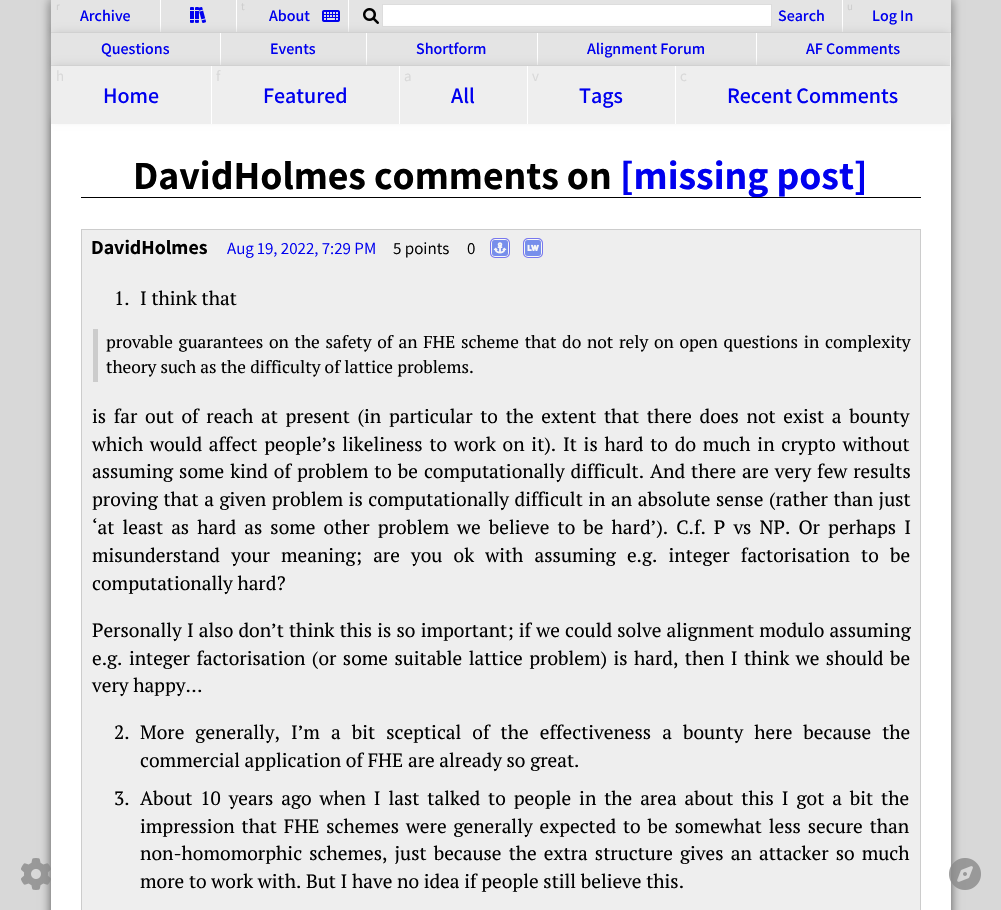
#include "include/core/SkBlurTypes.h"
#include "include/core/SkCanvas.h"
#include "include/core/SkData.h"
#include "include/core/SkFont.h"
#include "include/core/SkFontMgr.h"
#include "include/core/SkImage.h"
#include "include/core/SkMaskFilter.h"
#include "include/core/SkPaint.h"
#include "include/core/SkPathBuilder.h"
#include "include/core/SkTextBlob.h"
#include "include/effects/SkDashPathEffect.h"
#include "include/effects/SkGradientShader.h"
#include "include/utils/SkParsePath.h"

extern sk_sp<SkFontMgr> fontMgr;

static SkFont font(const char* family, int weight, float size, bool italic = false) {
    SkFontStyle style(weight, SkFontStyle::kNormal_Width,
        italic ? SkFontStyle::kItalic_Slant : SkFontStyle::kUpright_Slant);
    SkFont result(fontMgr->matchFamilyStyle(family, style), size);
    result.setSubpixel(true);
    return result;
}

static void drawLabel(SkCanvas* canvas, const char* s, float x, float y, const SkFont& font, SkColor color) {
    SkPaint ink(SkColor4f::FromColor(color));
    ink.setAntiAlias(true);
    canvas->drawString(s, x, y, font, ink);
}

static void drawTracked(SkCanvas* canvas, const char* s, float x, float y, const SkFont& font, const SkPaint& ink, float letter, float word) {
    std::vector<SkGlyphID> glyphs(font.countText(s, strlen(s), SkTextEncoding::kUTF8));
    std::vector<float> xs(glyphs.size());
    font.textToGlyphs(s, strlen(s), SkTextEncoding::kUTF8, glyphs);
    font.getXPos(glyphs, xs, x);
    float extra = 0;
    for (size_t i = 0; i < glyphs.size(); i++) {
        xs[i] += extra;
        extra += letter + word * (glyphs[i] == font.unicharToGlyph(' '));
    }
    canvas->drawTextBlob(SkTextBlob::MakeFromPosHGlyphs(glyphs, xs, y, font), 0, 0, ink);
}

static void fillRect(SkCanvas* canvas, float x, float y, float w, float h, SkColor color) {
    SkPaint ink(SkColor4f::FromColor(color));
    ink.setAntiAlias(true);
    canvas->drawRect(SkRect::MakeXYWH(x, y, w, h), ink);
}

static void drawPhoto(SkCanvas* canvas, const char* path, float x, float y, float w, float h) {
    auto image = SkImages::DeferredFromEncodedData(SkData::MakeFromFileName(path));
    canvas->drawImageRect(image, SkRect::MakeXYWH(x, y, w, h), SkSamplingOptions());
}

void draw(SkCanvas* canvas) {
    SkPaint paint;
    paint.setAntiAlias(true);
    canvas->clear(0xFFD8D8D8);
    paint.setColor(0xFF555555);
    paint.setMaskFilter(SkMaskFilter::MakeBlur(kNormal_SkBlurStyle, 5));
    canvas->drawRect(SkRect::MakeXYWH(51, 0, 900, 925), paint);
    paint.setMaskFilter(nullptr);
    fillRect(canvas, 51, 33, 900, 877, 0xFFFFFFFF);
    paint.setColor(0xFFCCCCCC);
    paint.setMaskFilter(SkMaskFilter::MakeBlur(kNormal_SkBlurStyle, 4));
    canvas->drawRect(SkRect::MakeXYWH(53, -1, 896, 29), paint);
    paint.setMaskFilter(nullptr);
    fillRect(canvas, 51, 0, 109, 32, 0xFFE4E4E4);
    fillRect(canvas, 51, 32, 109, 1, 0xFFD8D8D8);
    SkFont font1 = font("Assistant", 400, 11);
    drawLabel(canvas, "r", 56, 10, font1, 0xFFCCCCCC);
    SkFont font2 = font("Assistant", 600, 16);
    drawLabel(canvas, "Archive", 80, 21, font2, 0xFF0000EE);
    fillRect(canvas, 161, 0, 75, 32, 0xFFE4E4E4);
    fillRect(canvas, 160, 0, 1, 33, 0xFFFFFFFF);
    fillRect(canvas, 160, 32, 76, 1, 0xFFD8D8D8);
    drawPhoto(canvas, "assets/img1.png", 190, 7, 16, 16);
    fillRect(canvas, 237, 0, 111, 32, 0xFFE4E4E4);
    fillRect(canvas, 236, 0, 1, 33, 0xFFFFFFFF);
    fillRect(canvas, 236, 32, 112, 1, 0xFFD8D8D8);
    drawLabel(canvas, "t", 241, 10, font1, 0xFFCCCCCC);
    drawLabel(canvas, "About", 269, 21, font2, 0xFF0000EE);
    drawPhoto(canvas, "assets/img2.png", 322, 10, 18, 12);
    fillRect(canvas, 349, 0, 493, 32, 0xFFE4E4E4);
    fillRect(canvas, 348, 0, 1, 33, 0xFFFFFFFF);
    fillRect(canvas, 348, 32, 494, 1, 0xFFD8D8D8);
    drawPhoto(canvas, "assets/img3.png", 363, 8, 16, 16);
    paint.setColor(0xFFFFFFFF);
    canvas->drawRect(SkRect::MakeXYWH(382.5f, 4.5f, 389, 22), paint);
    paint.setStroke(true);
    paint.setStrokeWidth(1);
    paint.setColor(0xFFDDDDDD);
    canvas->drawRect(SkRect::MakeXYWH(382.5f, 4.5f, 389, 22), paint);
    drawLabel(canvas, "Search", 778, 21, font2, 0xFF0000EE);
    fillRect(canvas, 843, 0, 108, 32, 0xFFE4E4E4);
    fillRect(canvas, 842, 0, 1, 33, 0xFFFFFFFF);
    fillRect(canvas, 842, 32, 109, 1, 0xFFD8D8D8);
    drawLabel(canvas, "u", 847, 10, font1, 0xFFCCCCCC);
    drawLabel(canvas, "Log In", 872, 21, font2, 0xFF0000EE);
    paint.setStroke(false);
    paint.setColor(0xFFCCCCCC);
    paint.setMaskFilter(SkMaskFilter::MakeBlur(kNormal_SkBlurStyle, 4));
    canvas->drawRect(SkRect::MakeXYWH(53, 32, 896, 29), paint);
    paint.setMaskFilter(nullptr);
    fillRect(canvas, 51, 33, 169, 32, 0xFFE4E4E4);
    fillRect(canvas, 51, 65, 169, 1, 0xFFD8D8D8);
    drawLabel(canvas, "Questions", 101, 54, font2, 0xFF0000EE);
    fillRect(canvas, 221, 33, 145, 32, 0xFFE4E4E4);
    fillRect(canvas, 220, 33, 1, 33, 0xFFFFFFFF);
    fillRect(canvas, 220, 65, 146, 1, 0xFFD8D8D8);
    drawLabel(canvas, "Events", 270, 54, font2, 0xFF0000EE);
    fillRect(canvas, 367, 33, 170, 32, 0xFFE4E4E4);
    fillRect(canvas, 366, 33, 1, 33, 0xFFFFFFFF);
    fillRect(canvas, 366, 65, 171, 1, 0xFFD8D8D8);
    drawLabel(canvas, "Shortform", 416, 54, font2, 0xFF0000EE);
    fillRect(canvas, 538, 33, 218, 32, 0xFFE4E4E4);
    fillRect(canvas, 537, 33, 1, 33, 0xFFFFFFFF);
    fillRect(canvas, 537, 65, 219, 1, 0xFFD8D8D8);
    drawLabel(canvas, "Alignment Forum", 587, 54, font2, 0xFF0000EE);
    fillRect(canvas, 757, 33, 193, 32, 0xFFE4E4E4);
    fillRect(canvas, 756, 33, 1, 33, 0xFFFFFFFF);
    fillRect(canvas, 756, 65, 194, 1, 0xFFD8D8D8);
    drawLabel(canvas, "AF Comments", 806, 54, font2, 0xFF0000EE);
    paint.setMaskFilter(SkMaskFilter::MakeBlur(kNormal_SkBlurStyle, 4));
    canvas->drawRect(SkRect::MakeXYWH(53, 65, 896, 54), paint);
    paint.setMaskFilter(nullptr);
    fillRect(canvas, 51, 66, 160, 58, 0xFFEEEEEE);
    SkFont font3 = font("Assistant", 400, 15);
    drawLabel(canvas, "h", 56, 81, font3, 0xFFD8D8D8);
    SkFont font4 = font("Assistant", 600, 22);
    drawLabel(canvas, "Home", 103, 103, font4, 0xFF0000EE);
    fillRect(canvas, 212, 66, 187, 58, 0xFFEEEEEE);
    fillRect(canvas, 211, 66, 1, 58, 0xFFFFFFFF);
    drawLabel(canvas, "f", 216, 81, font3, 0xFFD8D8D8);
    drawLabel(canvas, "Featured", 263, 103, font4, 0xFF0000EE);
    fillRect(canvas, 400, 66, 127, 58, 0xFFEEEEEE);
    fillRect(canvas, 399, 66, 1, 58, 0xFFFFFFFF);
    drawLabel(canvas, "a", 404, 81, font3, 0xFFD8D8D8);
    drawLabel(canvas, "All", 451, 103, font4, 0xFF0000EE);
    fillRect(canvas, 528, 66, 147, 58, 0xFFEEEEEE);
    fillRect(canvas, 527, 66, 1, 58, 0xFFFFFFFF);
    drawLabel(canvas, "v", 532, 81, font3, 0xFFD8D8D8);
    drawLabel(canvas, "Tags", 579, 103, font4, 0xFF0000EE);
    fillRect(canvas, 676, 66, 274, 58, 0xFFEEEEEE);
    fillRect(canvas, 675, 66, 1, 58, 0xFFFFFFFF);
    drawLabel(canvas, "c", 680, 81, font3, 0xFFD8D8D8);
    drawLabel(canvas, "Recent Comments", 727, 103, font4, 0xFF0000EE);
    SkFont font5 = font("Assistant", 700, 40);
    drawLabel(canvas, "DavidHolmes comments on", 133, 189, font5, 0xFF000000);
    drawLabel(canvas, "[missing post]", 620, 189, font5, 0xFF0000EE);
    fillRect(canvas, 81, 197, 840, 1, 0xFF000000);
    paint.setColor(0xFFEEEEEE);
    canvas->drawRect(SkRect::MakeXYWH(81.5f, 229.5f, 839, 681), paint);
    paint.setStroke(true);
    paint.setColor(0xFFCCCCCC);
    canvas->drawRect(SkRect::MakeXYWH(81.5f, 229.5f, 839, 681), paint);
    SkFont font6 = font("Assistant", 700, 20);
    drawLabel(canvas, "DavidHolmes", 91, 254, font6, 0xFF000000);
    SkFont font7 = font("Assistant", 400, 17);
    drawLabel(canvas, "Aug 19, 2022, 7:29 PM", 227, 254, font7, 0xFF0000EE);
    drawLabel(canvas, "5 points", 393, 254, font7, 0xFF000000);
    drawLabel(canvas, "0", 467, 254, font7, 0xFF000000);
    paint.setStrokeWidth(2);
    paint.setColor(0xFF7777EE);
    canvas->drawRoundRect(SkRect::MakeXYWH(491, 239, 18, 18), 4, 4, paint);
    paint.setStrokeWidth(1);
    paint.setColor(0xFFF7F7F7);
    canvas->drawRoundRect(SkRect::MakeXYWH(491.5f, 239.5f, 17, 17), 3.5f, 3.5f, paint);
    drawPhoto(canvas, "assets/img4.png", 492, 240, 16, 16);
    paint.setStrokeWidth(2);
    paint.setColor(0xFF7777EE);
    canvas->drawRoundRect(SkRect::MakeXYWH(524, 239, 18, 18), 4, 4, paint);
    paint.setStrokeWidth(1);
    paint.setColor(0xFFF7F7F7);
    canvas->drawRoundRect(SkRect::MakeXYWH(524.5f, 239.5f, 17, 17), 3.5f, 3.5f, paint);
    drawPhoto(canvas, "assets/img5.png", 525, 240, 16, 16);
    SkFont font8 = font("PT Serif", 400, 19.2f);
    drawLabel(canvas, "1.", 114, 305, font8, 0xFF000000);
    drawLabel(canvas, "I think that", 140, 305, font8, 0xFF000000);
    fillRect(canvas, 93, 329, 5, 53, 0xFFCCCCCC);
    SkFont font9 = font("PT Serif", 400, 17.3f);
    paint.setStroke(false);
    paint.setColor(0xFF000000);
    drawTracked(canvas, "provable guarantees on the safety of an FHE scheme that do not rely on open questions in complexity", 106, 348, font9, paint, 0, 1.5f);
    drawLabel(canvas, "theory such as the difficulty of lattice problems.", 106, 373, font9, 0xFF000000);
    drawTracked(canvas, "is far out of reach at present (in particular to the extent that there does not exist a bounty", 92, 423, font8, paint, 0, 3);
    drawTracked(canvas, "which would affect people’s likeliness to work on it). It is hard to do much in crypto without", 92, 451, font8, paint, 0, 2.1f);
    drawTracked(canvas, "assuming some kind of problem to be computationally difficult. And there are very few results", 92, 478, font8, paint, 0, 1.25f);
    drawTracked(canvas, "proving that a given problem is computationally difficult in an absolute sense (rather than just", 92, 506, font8, paint, 0, 0.9f);
    drawTracked(canvas, "‘at least as hard as some other problem we believe to be hard’). C.f. P vs NP. Or perhaps I", 92, 534, font8, paint, 0, 3.4f);
    drawTracked(canvas, "misunderstand your meaning; are you ok with assuming e.g. integer factorisation to be", 92, 562, font8, paint, 0, 6.5f);
    drawLabel(canvas, "computationally hard?", 92, 590, font8, 0xFF000000);
    drawTracked(canvas, "Personally I also don’t think this is so important; if we could solve alignment modulo assuming", 92, 637, font8, paint, 0, 0.5f);
    drawTracked(canvas, "e.g. integer factorisation (or some suitable lattice problem) is hard, then I think we should be", 92, 665, font8, paint, 0, 1.75f);
    drawLabel(canvas, "very happy…", 92, 692, font8, 0xFF000000);
    drawLabel(canvas, "2.", 114, 739, font8, 0xFF000000);
    drawTracked(canvas, "More generally, I’m a bit sceptical of the effectiveness a bounty here because the", 140, 739, font8, paint, 0, 6.4f);
    drawLabel(canvas, "commercial application of FHE are already so great.", 140, 767, font8, 0xFF000000);
    drawLabel(canvas, "3.", 114, 805, font8, 0xFF000000);
    drawTracked(canvas, "About 10 years ago when I last talked to people in the area about this I got a bit the", 140, 805, font8, paint, 0, 3.25f);
    drawTracked(canvas, "impression that FHE schemes were generally expected to be somewhat less secure than", 140, 833, font8, paint, 0, 2.25f);
    drawTracked(canvas, "non-homomorphic schemes, just because the extra structure gives an attacker so much", 140, 860, font8, paint, 0, 2.5f);
    drawLabel(canvas, "more to work with. But I have no idea if people still believe this.", 140, 888, font8, 0xFF000000);
    drawPhoto(canvas, "assets/img6.png", 21, 858, 30, 32);
    drawPhoto(canvas, "assets/img7.png", 949, 858, 32, 32);
}
